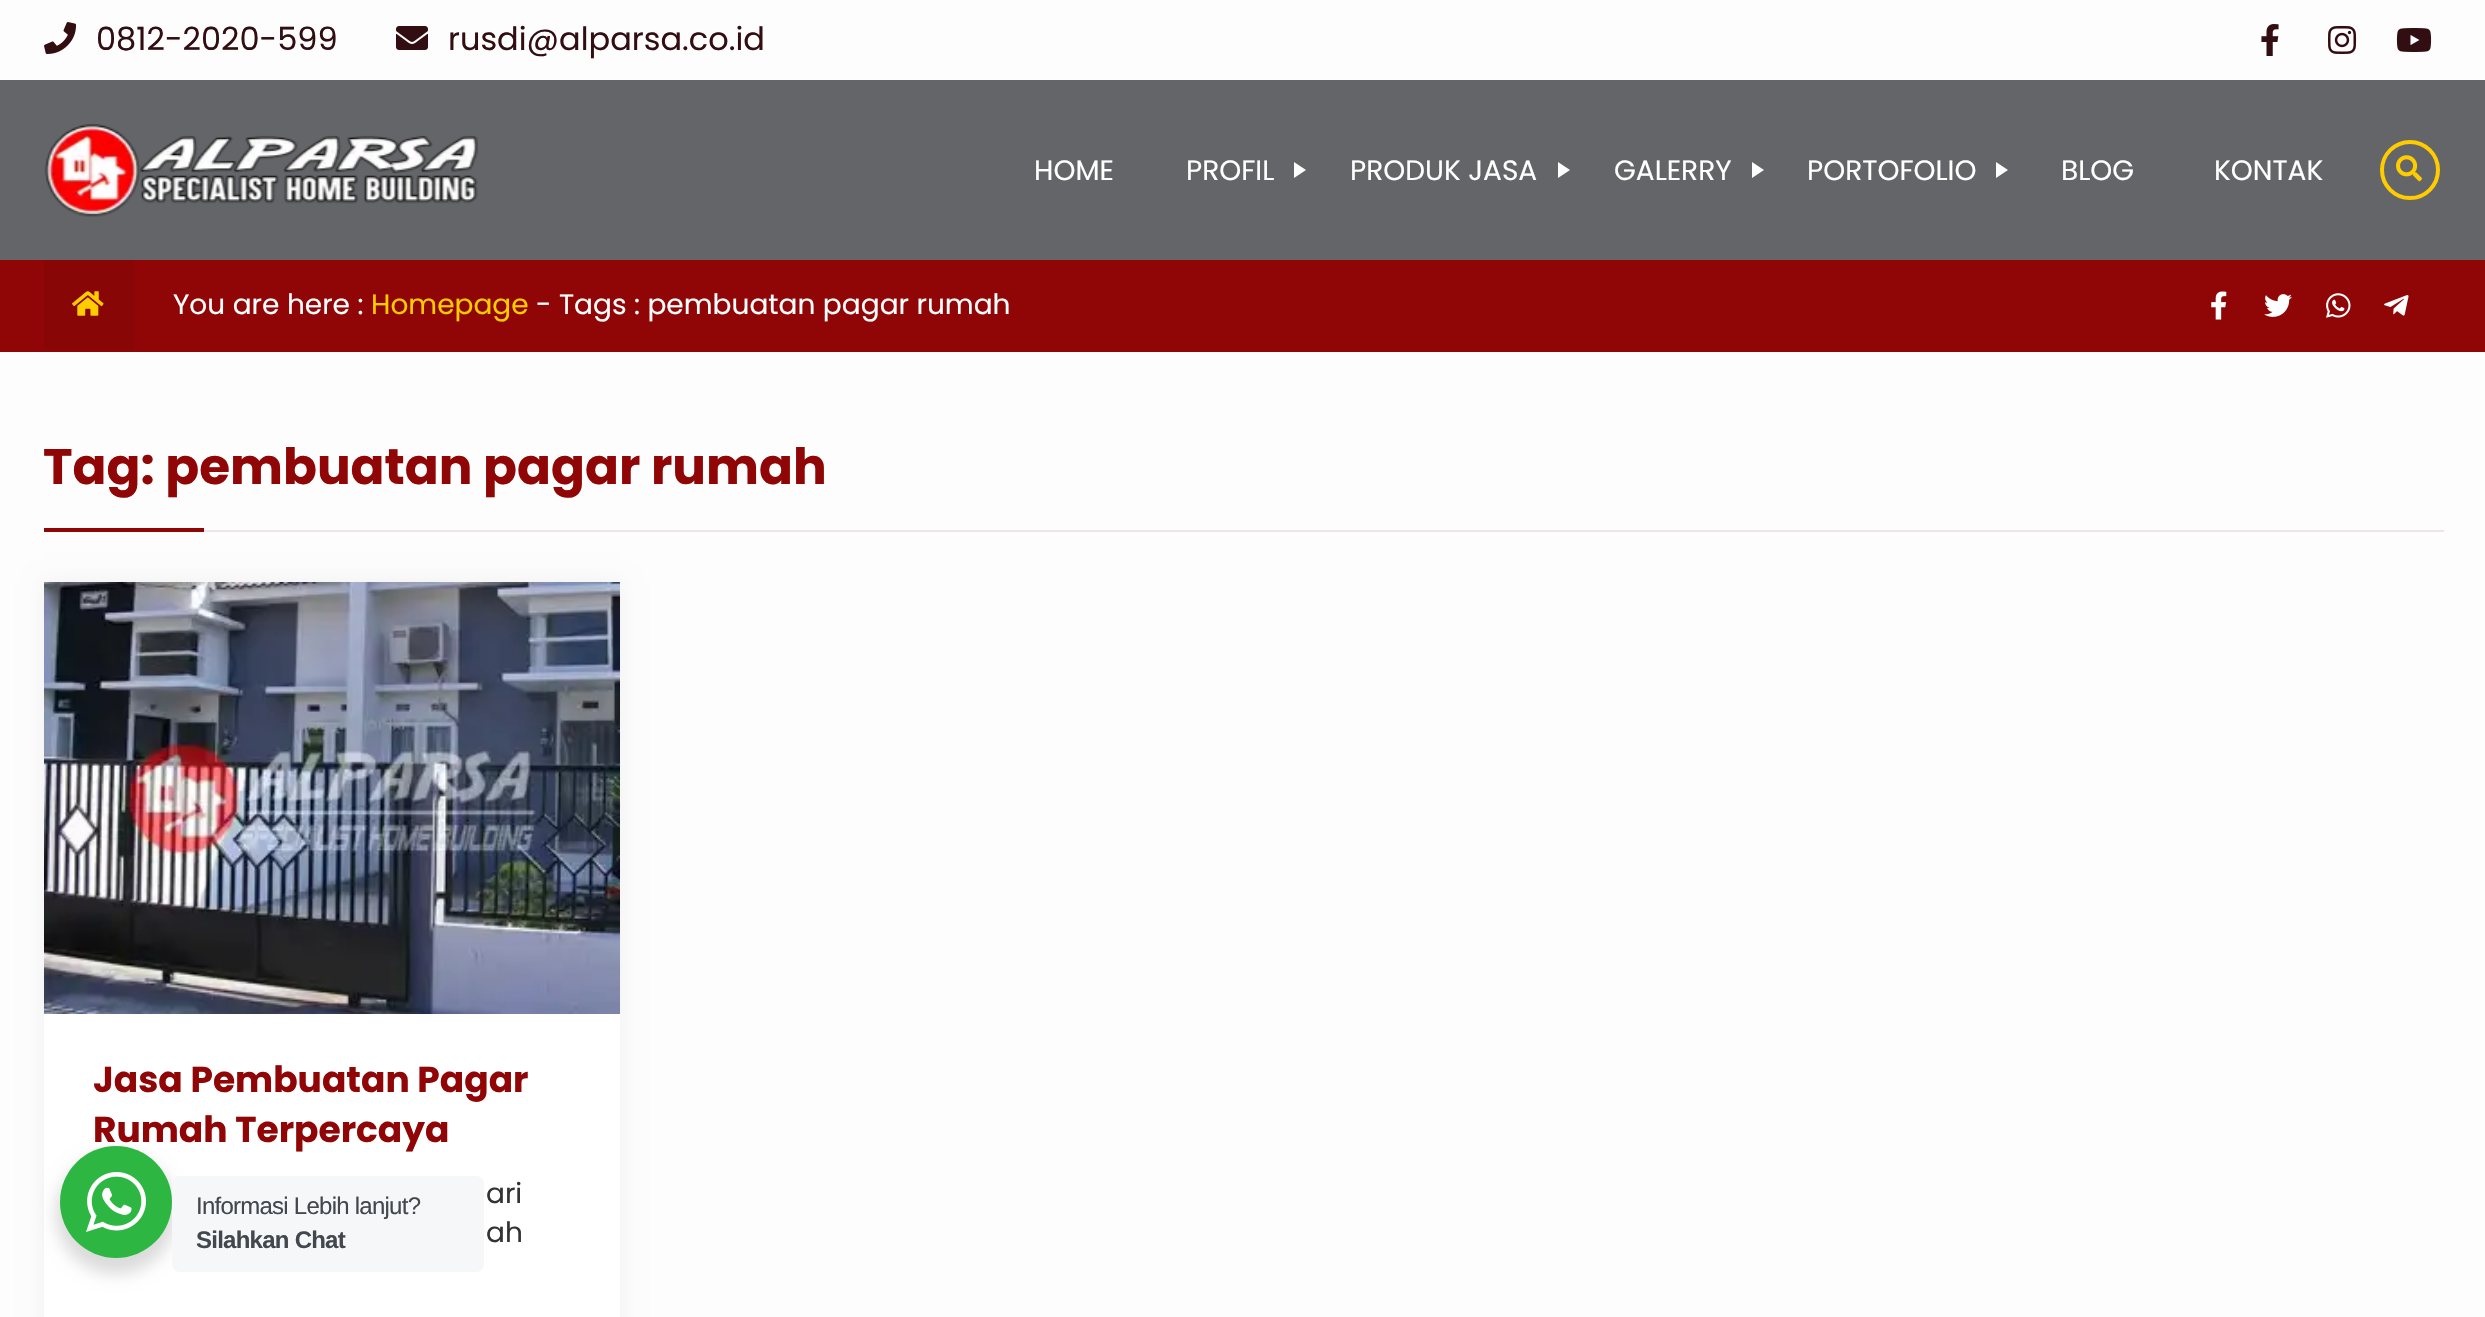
#include "include/core/SkBlurTypes.h"
#include "include/core/SkCanvas.h"
#include "include/core/SkData.h"
#include "include/core/SkFont.h"
#include "include/core/SkFontMgr.h"
#include "include/core/SkImage.h"
#include "include/core/SkMaskFilter.h"
#include "include/core/SkPaint.h"
#include "include/core/SkPathBuilder.h"
#include "include/core/SkTextBlob.h"
#include "include/effects/SkDashPathEffect.h"
#include "include/effects/SkGradientShader.h"
#include "include/utils/SkParsePath.h"

extern sk_sp<SkFontMgr> fontMgr;

static SkFont font(const char* family, int weight, float size, bool italic = false) {
    SkFontStyle style(weight, SkFontStyle::kNormal_Width,
        italic ? SkFontStyle::kItalic_Slant : SkFontStyle::kUpright_Slant);
    SkFont result(fontMgr->matchFamilyStyle(family, style), size);
    result.setSubpixel(true);
    return result;
}

static void drawLabel(SkCanvas* canvas, const char* s, float x, float y, const SkFont& font, SkColor color) {
    SkPaint ink(SkColor4f::FromColor(color));
    ink.setAntiAlias(true);
    canvas->drawString(s, x, y, font, ink);
}

static void drawTracked(SkCanvas* canvas, const char* s, float x, float y, const SkFont& font, const SkPaint& ink, float letter, float word) {
    std::vector<SkGlyphID> glyphs(font.countText(s, strlen(s), SkTextEncoding::kUTF8));
    std::vector<float> xs(glyphs.size());
    font.textToGlyphs(s, strlen(s), SkTextEncoding::kUTF8, glyphs);
    font.getXPos(glyphs, xs, x);
    float extra = 0;
    for (size_t i = 0; i < glyphs.size(); i++) {
        xs[i] += extra;
        extra += letter + word * (glyphs[i] == font.unicharToGlyph(' '));
    }
    canvas->drawTextBlob(SkTextBlob::MakeFromPosHGlyphs(glyphs, xs, y, font), 0, 0, ink);
}

static void fillRect(SkCanvas* canvas, float x, float y, float w, float h, SkColor color) {
    SkPaint ink(SkColor4f::FromColor(color));
    ink.setAntiAlias(true);
    canvas->drawRect(SkRect::MakeXYWH(x, y, w, h), ink);
}

static void fillRRect(SkCanvas* canvas, float x, float y, float w, float h, float radius, SkColor color) {
    SkPaint ink(SkColor4f::FromColor(color));
    ink.setAntiAlias(true);
    canvas->drawRoundRect(SkRect::MakeXYWH(x, y, w, h), radius, radius, ink);
}

static void drawPhoto(SkCanvas* canvas, const char* path, float x, float y, float w, float h) {
    auto image = SkImages::DeferredFromEncodedData(SkData::MakeFromFileName(path));
    canvas->drawImageRect(image, SkRect::MakeXYWH(x, y, w, h), SkSamplingOptions());
}

static SkPath parsePath(const char* data, bool evenOdd = false) {
    SkPath result = *SkParsePath::FromSVGString(data);
    if (evenOdd) result.setFillType(SkPathFillType::kEvenOdd);
    return result;
}

void draw(SkCanvas* canvas) {
    SkPaint paint;
    paint.setAntiAlias(true);
    canvas->clear(0xFFFDFDFD);
    drawPhoto(canvas, "assets/img1.png", 44, 22, 33, 32);
    SkFont font1 = font("Poppins", 400, 32);
    drawLabel(canvas, "0812-2020-599", 96, 50, font1, 0xFF320E12);
    drawPhoto(canvas, "assets/img2.png", 396, 26, 32, 24);
    drawLabel(canvas, "rusdi@alparsa.co.id", 448, 50, font1, 0xFF320E12);
    drawPhoto(canvas, "assets/img3.png", 2261, 24, 18, 32);
    drawPhoto(canvas, "assets/img4.png", 2328, 25, 29, 29);
    drawPhoto(canvas, "assets/img5.png", 2396, 28, 36, 24);
    fillRect(canvas, 0, 80, 2485, 180, 0xFF646569);
    drawPhoto(canvas, "assets/img6.png", 44, 124, 434, 93);
    SkFont font2 = font("Poppins", 400, 28);
    drawLabel(canvas, "HOME", 1034, 180, font2, 0xFFFFFFFF);
    drawLabel(canvas, "PROFIL", 1186, 180, font2, 0xFFFFFFFF);
    paint.setColor(0xFFFFFFFF);
    canvas->drawPath(parsePath("M1294 178V162L1306 170Z"), paint);
    drawLabel(canvas, "PRODUK JASA", 1350, 180, font2, 0xFFFFFFFF);
    canvas->drawPath(parsePath("M1558 178V162L1570 170Z"), paint);
    drawLabel(canvas, "GALERRY", 1614, 180, font2, 0xFFFFFFFF);
    canvas->drawPath(parsePath("M1752 178V162L1764 170Z"), paint);
    drawLabel(canvas, "PORTOFOLIO", 1807, 180, font2, 0xFFFFFFFF);
    canvas->drawPath(parsePath("M1996 178V162L2008 170Z"), paint);
    drawLabel(canvas, "BLOG", 2061, 180, font2, 0xFFFFFFFF);
    drawLabel(canvas, "KONTAK", 2214, 180, font2, 0xFFFFFFFF);
    paint.setStroke(true);
    paint.setStrokeWidth(4);
    paint.setColor(0xFFFFCC00);
    canvas->drawCircle(2410, 170, 28, paint);
    drawPhoto(canvas, "assets/img7.png", 2396, 155, 26, 27);
    fillRect(canvas, 0, 260, 2485, 92, 0xFF900606);
    fillRect(canvas, 44, 260, 90, 90, 0xFF890606);
    drawPhoto(canvas, "assets/img8.png", 72, 291, 32, 25);
    drawLabel(canvas, "You are here :", 173, 314, font2, 0xFFFFFFFF);
    drawLabel(canvas, "Homepage", 371, 314, font2, 0xFFFFCC00);
    drawLabel(canvas, "- Tags : pembuatan pagar rumah", 536, 314, font2, 0xFFFFFFFF);
    drawPhoto(canvas, "assets/img9.png", 2211, 291, 16, 29);
    drawPhoto(canvas, "assets/img10.png", 2264, 294, 28, 23);
    drawPhoto(canvas, "assets/img11.png", 2326, 293, 25, 25);
    drawPhoto(canvas, "assets/img12.png", 2384, 295, 25, 21);
    SkFont font3 = font("Poppins", 700, 50);
    drawLabel(canvas, "Tag: pembuatan pagar rumah", 43, 484, font3, 0xFF900606);
    fillRect(canvas, 44, 528, 160, 4, 0xFF900606);
    fillRect(canvas, 204, 530, 2240, 2, 0xFFF2E4E4);
    paint.setStroke(false);
    paint.setColor(0x0D000000);
    paint.setMaskFilter(SkMaskFilter::MakeBlur(kNormal_SkBlurStyle, 10));
    canvas->drawRect(SkRect::MakeXYWH(44, 582, 576, 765), paint);
    paint.setMaskFilter(nullptr);
    fillRect(canvas, 44, 1014, 576, 303, 0xFFFFFFFF);
    drawPhoto(canvas, "assets/img13.png", 44, 582, 576, 432);
    SkFont font4 = font("Poppins", 700, 36);
    drawLabel(canvas, "Jasa Pembuatan Pagar", 93, 1092, font4, 0xFF900606);
    drawLabel(canvas, "Rumah Terpercaya", 93, 1142, font4, 0xFF900606);
    drawLabel(canvas, "ari", 486, 1203, font2, 0xFF333333);
    drawLabel(canvas, "ah", 486, 1242, font2, 0xFF333333);
    paint.setColor(0x24000000);
    paint.setMaskFilter(SkMaskFilter::MakeBlur(kNormal_SkBlurStyle, 8));
    canvas->drawRoundRect(SkRect::MakeXYWH(56, 1154, 120, 120), 60, 60, paint);
    paint.setMaskFilter(nullptr);
    paint.setColor(0xFF2DB742);
    canvas->drawCircle(116, 1202, 56, paint);
    drawPhoto(canvas, "assets/img14.png", 86, 1172, 60, 60);
    fillRRect(canvas, 172, 1176, 312, 96, 8, 0xFFF5F7F9);
    SkFont font5 = font("Liberation Sans", 400, 24);
    paint.setColor(0xFF43474E);
    drawTracked(canvas, "Informasi Lebih lanjut?", 196, 1214, font5, paint, -0.75f, 0);
    SkFont font6 = font("Liberation Sans", 700, 24);
    drawTracked(canvas, "Silahkan Chat", 196, 1248, font6, paint, -0.75f, 0);
}
